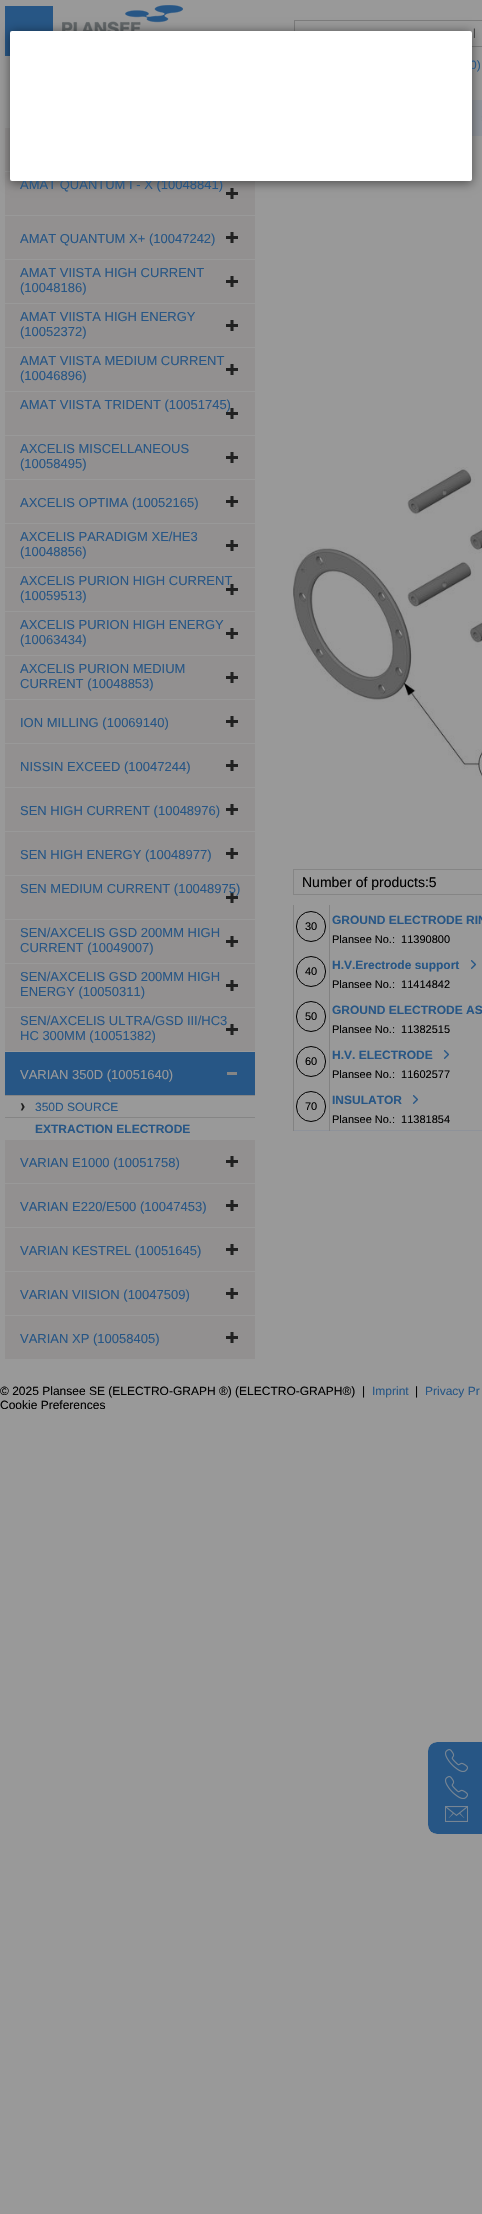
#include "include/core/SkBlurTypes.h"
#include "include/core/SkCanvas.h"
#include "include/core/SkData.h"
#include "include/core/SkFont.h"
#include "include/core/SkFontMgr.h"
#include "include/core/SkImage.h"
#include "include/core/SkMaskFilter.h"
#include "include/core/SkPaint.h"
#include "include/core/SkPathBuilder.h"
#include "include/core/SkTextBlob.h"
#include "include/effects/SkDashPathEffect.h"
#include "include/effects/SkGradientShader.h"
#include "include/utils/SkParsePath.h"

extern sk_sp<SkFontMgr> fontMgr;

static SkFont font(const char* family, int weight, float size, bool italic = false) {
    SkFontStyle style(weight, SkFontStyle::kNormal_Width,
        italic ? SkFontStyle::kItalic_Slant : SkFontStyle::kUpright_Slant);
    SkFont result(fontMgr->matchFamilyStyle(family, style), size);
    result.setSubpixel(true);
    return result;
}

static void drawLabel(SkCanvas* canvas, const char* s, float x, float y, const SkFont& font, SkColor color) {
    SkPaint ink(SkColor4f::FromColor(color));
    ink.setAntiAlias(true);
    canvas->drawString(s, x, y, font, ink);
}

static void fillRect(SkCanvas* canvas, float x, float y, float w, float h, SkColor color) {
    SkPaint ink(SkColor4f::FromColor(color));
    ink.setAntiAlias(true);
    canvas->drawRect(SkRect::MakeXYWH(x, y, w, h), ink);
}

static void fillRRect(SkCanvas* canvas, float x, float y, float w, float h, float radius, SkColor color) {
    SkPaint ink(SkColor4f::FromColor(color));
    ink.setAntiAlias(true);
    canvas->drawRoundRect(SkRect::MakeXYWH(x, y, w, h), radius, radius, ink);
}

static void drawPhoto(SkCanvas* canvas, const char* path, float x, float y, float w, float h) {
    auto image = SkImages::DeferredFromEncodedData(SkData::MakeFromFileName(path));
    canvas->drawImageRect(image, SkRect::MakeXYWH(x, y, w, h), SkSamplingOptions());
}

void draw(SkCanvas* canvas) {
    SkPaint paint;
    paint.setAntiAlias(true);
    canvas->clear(0xFF999999);
    fillRect(canvas, 5, 6, 48, 50, 0xFF275685);
    drawPhoto(canvas, "assets/img1.png", 62, 5, 121, 26);
    paint.setStroke(true);
    paint.setStrokeWidth(1);
    paint.setColor(0xFF7B7B7B);
    canvas->drawRect(SkRect::MakeXYWH(294.5f, 20.5f, 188, 26), paint);
    fillRect(canvas, 5, 128, 5, 43, 0xFF929090);
    fillRect(canvas, 5, 172, 250, 43, 0xFF929090);
    drawPhoto(canvas, "assets/img2.png", 226, 188, 12, 11);
    fillRect(canvas, 472, 100, 10, 36, 0xFF8E9299);
    drawPhoto(canvas, "assets/img4.png", 481, 116, 1, 5);
    paint.setStroke(false);
    paint.setColor(0x80000000);
    paint.setMaskFilter(SkMaskFilter::MakeBlur(kNormal_SkBlurStyle, 5));
    canvas->drawRect(SkRect::MakeXYWH(10, 32, 462, 151), paint);
    paint.setMaskFilter(nullptr);
    SkFont font1 = font("Liberation Sans", 400, 12);
    drawLabel(canvas, "0)", 470, 69, font1, 0xFF275685);
    SkFont font2 = font("Liberation Sans", 400, 13);
    drawLabel(canvas, "AMAT QUANTUM I - X (10048841)", 20, 189, font2, 0xFF275685);
    fillRRect(canvas, 10, 31, 462, 150, 2, 0xFFFFFFFF);
    drawLabel(canvas, "l", 473, 38, font2, 0xFF464646);
    fillRect(canvas, 5, 216, 250, 43, 0xFF929090);
    drawPhoto(canvas, "assets/img2.png", 226, 232, 12, 11);
    drawLabel(canvas, "AMAT QUANTUM X+ (10047242)", 20, 243, font2, 0xFF275685);
    fillRect(canvas, 5, 260, 250, 43, 0xFF929090);
    drawPhoto(canvas, "assets/img2.png", 226, 276, 12, 11);
    drawLabel(canvas, "AMAT VIISTA HIGH CURRENT", 20, 277, font2, 0xFF275685);
    drawLabel(canvas, "(10048186)", 20, 292, font2, 0xFF275685);
    fillRect(canvas, 5, 304, 250, 43, 0xFF929090);
    drawPhoto(canvas, "assets/img2.png", 226, 320, 12, 11);
    drawLabel(canvas, "AMAT VIISTA HIGH ENERGY", 20, 321, font2, 0xFF275685);
    drawLabel(canvas, "(10052372)", 20, 336, font2, 0xFF275685);
    fillRect(canvas, 5, 348, 250, 43, 0xFF929090);
    drawPhoto(canvas, "assets/img2.png", 226, 364, 12, 11);
    drawLabel(canvas, "AMAT VIISTA MEDIUM CURRENT", 20, 365, font2, 0xFF275685);
    drawLabel(canvas, "(10046896)", 20, 380, font2, 0xFF275685);
    fillRect(canvas, 5, 392, 250, 43, 0xFF929090);
    drawPhoto(canvas, "assets/img2.png", 226, 408, 12, 11);
    drawLabel(canvas, "AMAT VIISTA TRIDENT (10051745)", 20, 409, font2, 0xFF275685);
    fillRect(canvas, 5, 436, 250, 43, 0xFF929090);
    drawPhoto(canvas, "assets/img2.png", 226, 452, 12, 11);
    drawLabel(canvas, "AXCELIS MISCELLANEOUS", 20, 453, font2, 0xFF275685);
    drawLabel(canvas, "(10058495)", 20, 468, font2, 0xFF275685);
    fillRect(canvas, 5, 480, 250, 43, 0xFF929090);
    drawPhoto(canvas, "assets/img2.png", 226, 496, 12, 11);
    drawLabel(canvas, "AXCELIS OPTIMA (10052165)", 20, 507, font2, 0xFF275685);
    fillRect(canvas, 5, 524, 250, 43, 0xFF929090);
    drawPhoto(canvas, "assets/img2.png", 226, 540, 12, 11);
    drawLabel(canvas, "AXCELIS PARADIGM XE/HE3", 20, 541, font2, 0xFF275685);
    drawLabel(canvas, "(10048856)", 20, 556, font2, 0xFF275685);
    fillRect(canvas, 5, 568, 250, 43, 0xFF929090);
    drawPhoto(canvas, "assets/img2.png", 226, 584, 12, 11);
    drawLabel(canvas, "AXCELIS PURION HIGH CURRENT", 20, 585, font2, 0xFF275685);
    drawLabel(canvas, "(10059513)", 20, 600, font2, 0xFF275685);
    fillRect(canvas, 5, 612, 250, 43, 0xFF929090);
    drawPhoto(canvas, "assets/img2.png", 226, 628, 12, 11);
    drawLabel(canvas, "AXCELIS PURION HIGH ENERGY", 20, 629, font2, 0xFF275685);
    drawLabel(canvas, "(10063434)", 20, 644, font2, 0xFF275685);
    fillRect(canvas, 5, 656, 250, 43, 0xFF929090);
    drawPhoto(canvas, "assets/img2.png", 226, 672, 12, 11);
    drawLabel(canvas, "AXCELIS PURION MEDIUM", 20, 673, font2, 0xFF275685);
    drawLabel(canvas, "CURRENT (10048853)", 20, 688, font2, 0xFF275685);
    fillRect(canvas, 5, 700, 250, 43, 0xFF929090);
    drawPhoto(canvas, "assets/img2.png", 226, 716, 12, 11);
    drawLabel(canvas, "ION MILLING (10069140)", 20, 727, font2, 0xFF275685);
    fillRect(canvas, 5, 744, 250, 43, 0xFF929090);
    drawPhoto(canvas, "assets/img2.png", 226, 760, 12, 11);
    drawLabel(canvas, "NISSIN EXCEED (10047244)", 20, 771, font2, 0xFF275685);
    fillRect(canvas, 5, 788, 250, 43, 0xFF929090);
    drawPhoto(canvas, "assets/img2.png", 226, 804, 12, 11);
    drawLabel(canvas, "SEN HIGH CURRENT (10048976)", 20, 815, font2, 0xFF275685);
    fillRect(canvas, 5, 832, 250, 43, 0xFF929090);
    drawPhoto(canvas, "assets/img2.png", 226, 848, 12, 11);
    drawLabel(canvas, "SEN HIGH ENERGY (10048977)", 20, 859, font2, 0xFF275685);
    fillRect(canvas, 5, 876, 250, 43, 0xFF929090);
    drawPhoto(canvas, "assets/img2.png", 226, 892, 12, 11);
    drawLabel(canvas, "SEN MEDIUM CURRENT (10048975)", 20, 893, font2, 0xFF275685);
    fillRect(canvas, 5, 920, 250, 43, 0xFF929090);
    drawPhoto(canvas, "assets/img2.png", 226, 936, 12, 11);
    drawLabel(canvas, "SEN/AXCELIS GSD 200MM HIGH", 20, 937, font2, 0xFF275685);
    drawLabel(canvas, "CURRENT (10049007)", 20, 952, font2, 0xFF275685);
    fillRect(canvas, 5, 964, 250, 43, 0xFF929090);
    drawPhoto(canvas, "assets/img2.png", 226, 980, 12, 11);
    drawLabel(canvas, "SEN/AXCELIS GSD 200MM HIGH", 20, 981, font2, 0xFF275685);
    drawLabel(canvas, "ENERGY (10050311)", 20, 996, font2, 0xFF275685);
    fillRect(canvas, 5, 1008, 250, 43, 0xFF929090);
    drawPhoto(canvas, "assets/img2.png", 226, 1024, 12, 11);
    drawLabel(canvas, "SEN/AXCELIS ULTRA/GSD III/HC3", 20, 1025, font2, 0xFF275685);
    drawLabel(canvas, "HC 300MM (10051382)", 20, 1040, font2, 0xFF275685);
    fillRect(canvas, 5, 1052, 250, 43, 0xFF275685);
    fillRect(canvas, 227, 1072, 10, 3, 0xFF858585);
    drawLabel(canvas, "VARIAN 350D (10051640)", 20, 1079, font2, 0xFF999999);
    fillRect(canvas, 5, 1095, 250, 1, 0xFF858585);
    drawPhoto(canvas, "assets/img3.png", 20, 1103, 5, 8);
    drawLabel(canvas, "350D SOURCE", 35, 1111, font1, 0xFF275685);
    fillRect(canvas, 5, 1117, 250, 1, 0xFF858585);
    SkFont font3 = font("Liberation Sans", 700, 12);
    drawLabel(canvas, "EXTRACTION ELECTRODE", 35, 1133, font3, 0xFF275685);
    fillRect(canvas, 5, 1140, 250, 43, 0xFF929090);
    drawPhoto(canvas, "assets/img2.png", 226, 1156, 12, 11);
    drawLabel(canvas, "VARIAN E1000 (10051758)", 20, 1167, font2, 0xFF275685);
    fillRect(canvas, 5, 1184, 250, 43, 0xFF929090);
    drawPhoto(canvas, "assets/img2.png", 226, 1200, 12, 11);
    drawLabel(canvas, "VARIAN E220/E500 (10047453)", 20, 1211, font2, 0xFF275685);
    fillRect(canvas, 5, 1228, 250, 43, 0xFF929090);
    drawPhoto(canvas, "assets/img2.png", 226, 1244, 12, 11);
    drawLabel(canvas, "VARIAN KESTREL (10051645)", 20, 1255, font2, 0xFF275685);
    fillRect(canvas, 5, 1272, 250, 43, 0xFF929090);
    drawPhoto(canvas, "assets/img2.png", 226, 1288, 12, 11);
    drawLabel(canvas, "VARIAN VIISION (10047509)", 20, 1299, font2, 0xFF275685);
    fillRect(canvas, 5, 1316, 250, 43, 0xFF929090);
    drawPhoto(canvas, "assets/img2.png", 226, 1332, 12, 11);
    drawLabel(canvas, "VARIAN XP (10058405)", 20, 1343, font2, 0xFF275685);
    drawPhoto(canvas, "assets/img5.png", 293, 467, 189, 310);
    paint.setStroke(true);
    paint.setColor(0xFF858585);
    canvas->drawRect(SkRect::MakeXYWH(293.5f, 869.5f, 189, 25), paint);
    SkFont font4 = font("Liberation Sans", 400, 14);
    drawLabel(canvas, "Number of products:5", 302, 887, font4, 0xFF000000);
    fillRRect(canvas, 428, 1742, 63, 92, 9, 0xFF275685);
    paint.setColor(0xFF999999);
    canvas->drawRoundRect(SkRect::MakeXYWH(427.5f, 1741.5f, 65, 93), 9.5f, 9.5f, paint);
    drawPhoto(canvas, "assets/img6.png", 445, 1749, 23, 23);
    drawPhoto(canvas, "assets/img6.png", 445, 1776, 23, 23);
    drawPhoto(canvas, "assets/img7.png", 445, 1806, 23, 16);
    fillRect(canvas, 293, 1130, 189, 1, 0xFF8E9299);
    paint.setColor(0xFF000000);
    canvas->drawRoundRect(SkRect::MakeXYWH(296.5f, 911.5f, 29, 30), 14.5f, 14.5f, paint);
    SkFont font5 = font("Liberation Sans", 400, 11);
    drawLabel(canvas, "30", 305, 930, font5, 0xFF000000);
    drawLabel(canvas, "GROUND ELECTRODE RIN", 332, 924, font3, 0xFF275685);
    drawLabel(canvas, "Plansee No.:  11390800", 332, 943, font5, 0xFF000000);
    canvas->drawRoundRect(SkRect::MakeXYWH(296.5f, 956.5f, 29, 30), 14.5f, 14.5f, paint);
    drawLabel(canvas, "40", 305, 975, font5, 0xFF000000);
    drawLabel(canvas, "H.V.Erectrode support", 332, 969, font3, 0xFF275685);
    drawPhoto(canvas, "assets/img8.png", 470, 960, 7, 9);
    drawLabel(canvas, "Plansee No.:  11414842", 332, 988, font5, 0xFF000000);
    canvas->drawRoundRect(SkRect::MakeXYWH(296.5f, 1001.5f, 29, 30), 14.5f, 14.5f, paint);
    drawLabel(canvas, "50", 305, 1020, font5, 0xFF000000);
    drawLabel(canvas, "GROUND ELECTRODE AS", 332, 1014, font3, 0xFF275685);
    drawLabel(canvas, "Plansee No.:  11382515", 332, 1033, font5, 0xFF000000);
    canvas->drawRoundRect(SkRect::MakeXYWH(296.5f, 1046.5f, 29, 30), 14.5f, 14.5f, paint);
    drawLabel(canvas, "60", 305, 1065, font5, 0xFF000000);
    drawLabel(canvas, "H.V. ELECTRODE", 332, 1059, font3, 0xFF275685);
    drawPhoto(canvas, "assets/img8.png", 443, 1050, 7, 9);
    drawLabel(canvas, "Plansee No.:  11602577", 332, 1078, font5, 0xFF000000);
    fillRect(canvas, 329, 905, 1, 226, 0xFF828282);
    fillRect(canvas, 293, 905, 1, 226, 0xFF828282);
    canvas->drawRoundRect(SkRect::MakeXYWH(296.5f, 1091.5f, 29, 30), 14.5f, 14.5f, paint);
    drawLabel(canvas, "70", 305, 1110, font5, 0xFF000000);
    drawLabel(canvas, "INSULATOR", 332, 1104, font3, 0xFF275685);
    drawPhoto(canvas, "assets/img8.png", 412, 1095, 7, 9);
    drawLabel(canvas, "Plansee No.:  11381854", 332, 1123, font5, 0xFF000000);
    drawLabel(canvas, "© 2025 Plansee SE (ELECTRO-GRAPH ®) (ELECTRO-GRAPH®)", 0, 1395, font1, 0xFF000000);
    drawLabel(canvas, "|", 362, 1395, font1, 0xFF000000);
    drawLabel(canvas, "Imprint", 372, 1395, font1, 0xFF275685);
    drawLabel(canvas, "|", 415, 1395, font1, 0xFF000000);
    drawLabel(canvas, "Privacy Pr", 425, 1395, font1, 0xFF275685);
    drawLabel(canvas, "Cookie Preferences", 0, 1409, font1, 0xFF000000);
}
